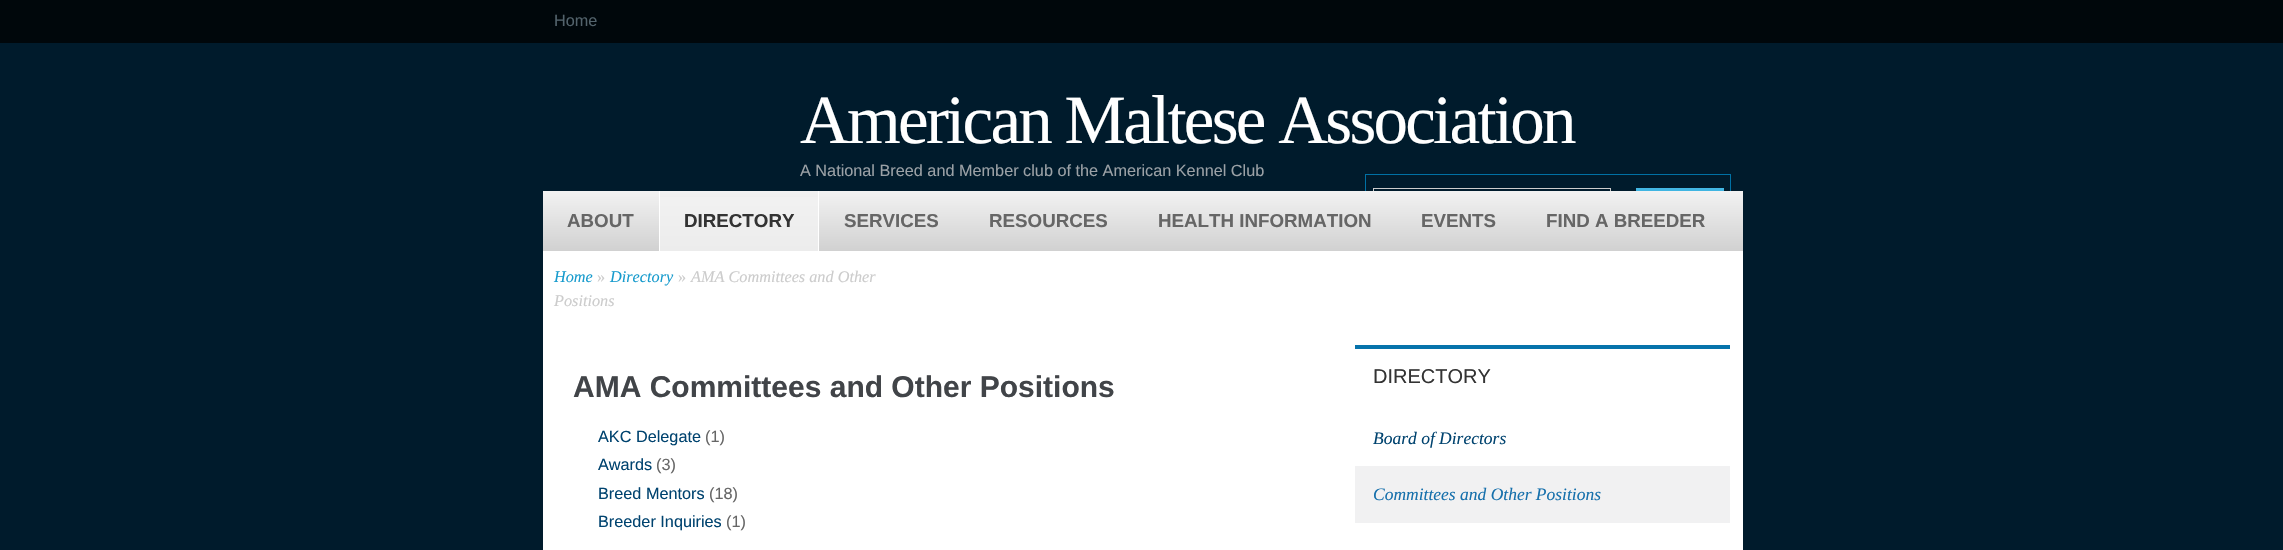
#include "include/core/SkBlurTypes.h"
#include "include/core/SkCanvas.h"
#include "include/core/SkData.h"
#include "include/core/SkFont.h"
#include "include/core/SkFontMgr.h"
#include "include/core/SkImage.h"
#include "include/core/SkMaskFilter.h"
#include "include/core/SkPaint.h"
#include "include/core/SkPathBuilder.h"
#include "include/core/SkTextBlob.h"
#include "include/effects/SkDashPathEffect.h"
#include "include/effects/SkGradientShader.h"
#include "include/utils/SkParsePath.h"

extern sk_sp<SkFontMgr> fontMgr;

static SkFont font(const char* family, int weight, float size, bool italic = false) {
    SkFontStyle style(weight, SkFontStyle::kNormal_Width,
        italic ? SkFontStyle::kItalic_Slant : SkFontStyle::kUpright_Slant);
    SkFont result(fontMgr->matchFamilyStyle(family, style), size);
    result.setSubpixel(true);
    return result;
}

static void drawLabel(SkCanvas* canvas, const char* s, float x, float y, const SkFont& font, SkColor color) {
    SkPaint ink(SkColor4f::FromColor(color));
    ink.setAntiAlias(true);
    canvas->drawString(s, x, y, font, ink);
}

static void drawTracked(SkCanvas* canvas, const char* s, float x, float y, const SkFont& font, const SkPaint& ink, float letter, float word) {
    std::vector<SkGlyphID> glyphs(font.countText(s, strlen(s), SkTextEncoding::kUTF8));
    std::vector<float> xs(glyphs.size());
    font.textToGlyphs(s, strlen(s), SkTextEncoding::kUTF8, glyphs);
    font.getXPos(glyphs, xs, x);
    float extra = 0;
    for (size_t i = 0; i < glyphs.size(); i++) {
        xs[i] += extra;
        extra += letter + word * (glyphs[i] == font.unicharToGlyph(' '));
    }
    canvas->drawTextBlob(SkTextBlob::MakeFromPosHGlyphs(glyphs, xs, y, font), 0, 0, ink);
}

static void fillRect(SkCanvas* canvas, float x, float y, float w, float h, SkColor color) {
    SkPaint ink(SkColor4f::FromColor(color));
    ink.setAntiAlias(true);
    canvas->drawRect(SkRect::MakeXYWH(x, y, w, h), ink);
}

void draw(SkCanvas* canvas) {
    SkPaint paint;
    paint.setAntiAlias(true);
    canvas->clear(0xFF001B2C);
    fillRect(canvas, 0, 0, 2283, 43, 0xFF00070B);
    SkFont font1 = font("Liberation Sans", 400, 16.25f);
    drawLabel(canvas, "Home", 554, 26, font1, 0xFF53636C);
    SkFont font2 = font("Liberation Serif", 400, 69);
    paint.setColor(0xFFFFFFFF);
    drawTracked(canvas, "American Maltese Association", 800, 143, font2, paint, -2.75f, 0);
    drawLabel(canvas, "A National Breed and Member club of the American Kennel Club", 800, 176, font1, 0xFF9BA1A6);
    paint.setStroke(true);
    paint.setStrokeWidth(1);
    paint.setColor(0xFF0071A5);
    canvas->drawRect(SkRect::MakeXYWH(1365.5f, 174.5f, 365, 65), paint);
    paint.setColor(0xFFCCCCCC);
    canvas->drawRect(SkRect::MakeXYWH(1373.5f, 188.5f, 237, 34), paint);
    paint.setStroke(false);
    {
        const SkColor colors[] = {0xFF44B8E5, 0xFF0C88B6};
        const float stops[] = {0, 1};
        const SkPoint ends[] = {{1680, 188}, {1680, 225}};
        paint.setShader(SkGradientShader::MakeLinear(ends, colors, stops, 2, SkTileMode::kClamp));
        paint.setAlpha(255);
    }
    canvas->drawRect(SkRect::MakeXYWH(1636, 188, 88, 3), paint);
    {
        const SkColor colors[] = {0xFFF2F2F2, 0xFFD1D1D1};
        const float stops[] = {0, 1};
        const SkPoint ends[] = {{1143, 191}, {1143, 251}};
        paint.setShader(SkGradientShader::MakeLinear(ends, colors, stops, 2, SkTileMode::kClamp));
        paint.setAlpha(255);
    }
    canvas->drawRect(SkRect::MakeXYWH(543, 191, 1200, 60), paint);
    SkFont font3 = font("Liberation Sans", 700, 18.75f);
    drawLabel(canvas, "ABOUT", 567, 227, font3, 0xFF666666);
    {
        const SkColor colors[] = {0xFFF2F2F2, 0xFFECECEC};
        const float stops[] = {0, 1};
        const SkPoint ends[] = {{739, 191}, {739, 251}};
        paint.setShader(SkGradientShader::MakeLinear(ends, colors, stops, 2, SkTileMode::kClamp));
        paint.setAlpha(255);
    }
    canvas->drawRect(SkRect::MakeXYWH(660, 197, 158, 54), paint);
    fillRect(canvas, 818, 191, 1, 60, 0xFFFFFFFF);
    fillRect(canvas, 659, 191, 1, 60, 0xFFFFFFFF);
    drawLabel(canvas, "DIRECTORY", 684, 227, font3, 0xFF333333);
    drawLabel(canvas, "SERVICES", 844, 227, font3, 0xFF666666);
    drawLabel(canvas, "RESOURCES", 989, 227, font3, 0xFF666666);
    drawLabel(canvas, "HEALTH INFORMATION", 1158, 227, font3, 0xFF666666);
    drawLabel(canvas, "EVENTS", 1421, 227, font3, 0xFF666666);
    drawLabel(canvas, "FIND A BREEDER", 1546, 227, font3, 0xFF666666);
    fillRect(canvas, 543, 251, 1200, 299, 0xFFFFFFFF);
    SkFont font4 = font("Liberation Serif", 400, 16.25f, true);
    drawLabel(canvas, "Home", 554, 282, font4, 0xFF179BCD);
    SkFont font5 = font("Liberation Serif", 400, 16.25f);
    drawLabel(canvas, "»", 597, 282, font5, 0xFFCCCCCC);
    drawLabel(canvas, "Directory", 610, 282, font4, 0xFF179BCD);
    drawLabel(canvas, "»", 678, 282, font5, 0xFFCCCCCC);
    drawLabel(canvas, "AMA Committees and Other", 691, 282, font4, 0xFFCCCCCC);
    drawLabel(canvas, "Positions", 554, 306, font4, 0xFFCCCCCC);
    SkFont font6 = font("Liberation Sans", 700, 30);
    drawLabel(canvas, "AMA Committees and Other Positions", 573, 397, font6, 0xFF414448);
    drawLabel(canvas, "AKC Delegate", 598, 442, font1, 0xFF00436F);
    drawLabel(canvas, "(1)", 705, 442, font1, 0xFF666666);
    drawLabel(canvas, "Awards", 598, 470, font1, 0xFF00436F);
    drawLabel(canvas, "(3)", 656, 470, font1, 0xFF666666);
    drawLabel(canvas, "Breed Mentors", 598, 499, font1, 0xFF00436F);
    drawLabel(canvas, "(18)", 709, 499, font1, 0xFF666666);
    drawLabel(canvas, "Breeder Inquiries", 598, 527, font1, 0xFF00436F);
    drawLabel(canvas, "(1)", 726, 527, font1, 0xFF666666);
    fillRect(canvas, 1355, 345, 375, 4, 0xFF0673AB);
    SkFont font7 = font("Liberation Sans", 400, 20);
    drawLabel(canvas, "DIRECTORY", 1373, 383, font7, 0xFF333333);
    SkFont font8 = font("Liberation Serif", 400, 17.5f, true);
    drawLabel(canvas, "Board of Directors", 1373, 444, font8, 0xFF00436F);
    fillRect(canvas, 1355, 466, 375, 57, 0xFFF1F1F2);
    drawLabel(canvas, "Committees and Other Positions", 1373, 500, font8, 0xFF1670AC);
}
